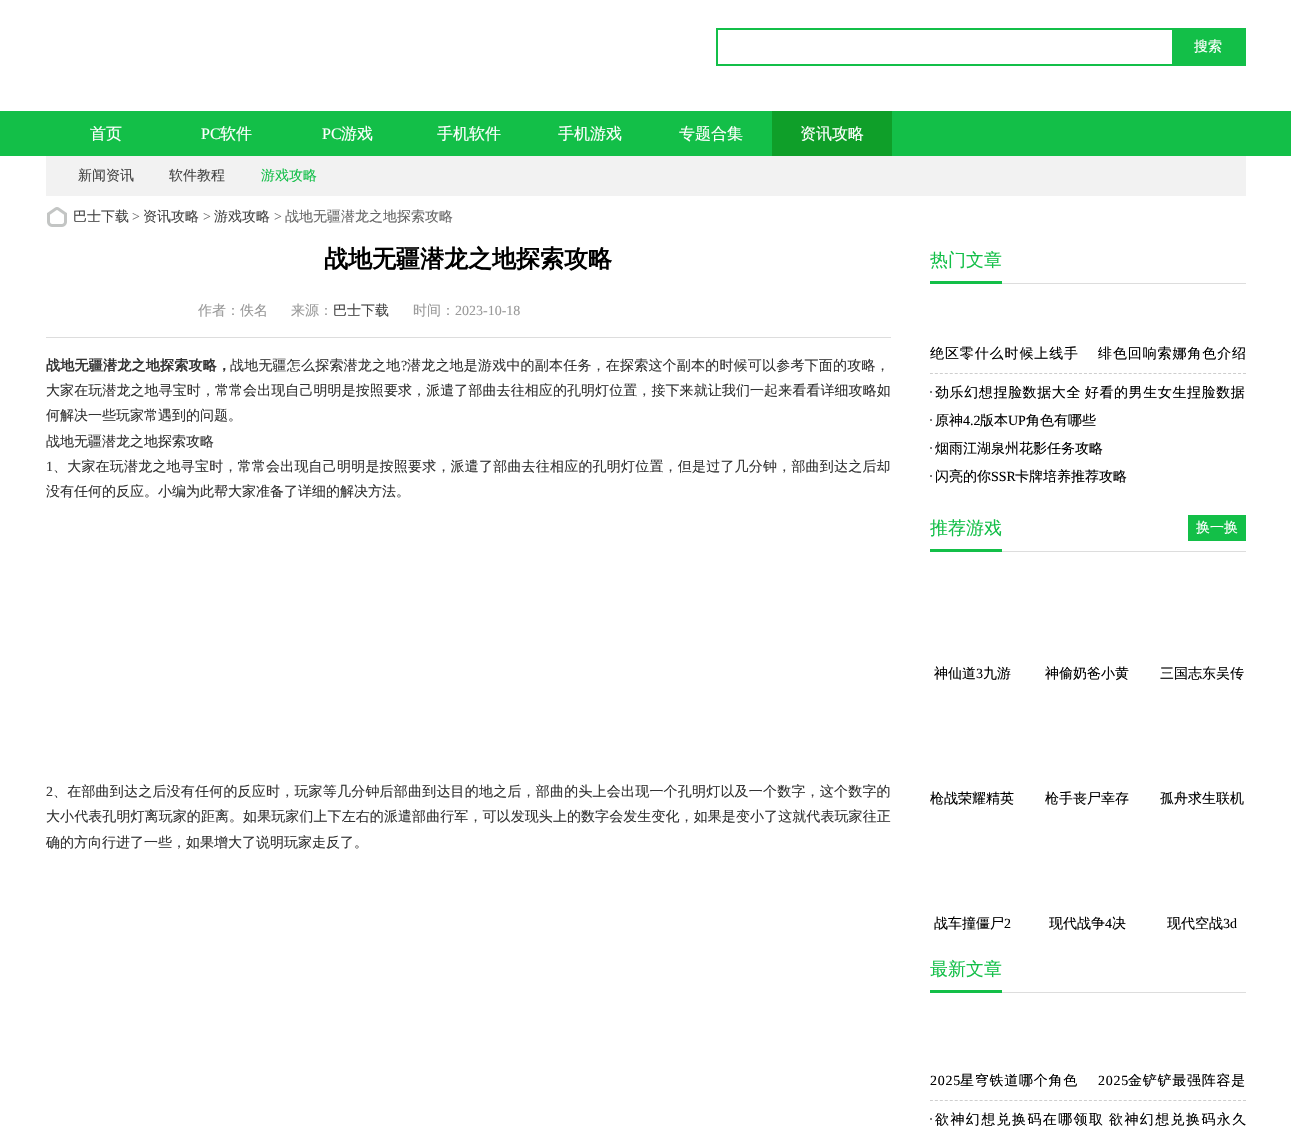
#include "include/core/SkBlurTypes.h"
#include "include/core/SkCanvas.h"
#include "include/core/SkData.h"
#include "include/core/SkFont.h"
#include "include/core/SkFontMgr.h"
#include "include/core/SkImage.h"
#include "include/core/SkMaskFilter.h"
#include "include/core/SkPaint.h"
#include "include/core/SkPathBuilder.h"
#include "include/core/SkTextBlob.h"
#include "include/effects/SkDashPathEffect.h"
#include "include/effects/SkGradientShader.h"
#include "include/utils/SkParsePath.h"

extern sk_sp<SkFontMgr> fontMgr;

static SkFont font(const char* family, int weight, float size, bool italic = false) {
    SkFontStyle style(weight, SkFontStyle::kNormal_Width,
        italic ? SkFontStyle::kItalic_Slant : SkFontStyle::kUpright_Slant);
    SkFont result(fontMgr->matchFamilyStyle(family, style), size);
    result.setSubpixel(true);
    return result;
}

static void drawLabel(SkCanvas* canvas, const char* s, float x, float y, const SkFont& font, SkColor color) {
    SkPaint ink(SkColor4f::FromColor(color));
    ink.setAntiAlias(true);
    canvas->drawString(s, x, y, font, ink);
}

static void drawTracked(SkCanvas* canvas, const char* s, float x, float y, const SkFont& font, const SkPaint& ink, float letter, float word) {
    std::vector<SkGlyphID> glyphs(font.countText(s, strlen(s), SkTextEncoding::kUTF8));
    std::vector<float> xs(glyphs.size());
    font.textToGlyphs(s, strlen(s), SkTextEncoding::kUTF8, glyphs);
    font.getXPos(glyphs, xs, x);
    float extra = 0;
    for (size_t i = 0; i < glyphs.size(); i++) {
        xs[i] += extra;
        extra += letter + word * (glyphs[i] == font.unicharToGlyph(' '));
    }
    canvas->drawTextBlob(SkTextBlob::MakeFromPosHGlyphs(glyphs, xs, y, font), 0, 0, ink);
}

static void fillRect(SkCanvas* canvas, float x, float y, float w, float h, SkColor color) {
    SkPaint ink(SkColor4f::FromColor(color));
    ink.setAntiAlias(true);
    canvas->drawRect(SkRect::MakeXYWH(x, y, w, h), ink);
}

static void drawPhoto(SkCanvas* canvas, const char* path, float x, float y, float w, float h) {
    auto image = SkImages::DeferredFromEncodedData(SkData::MakeFromFileName(path));
    canvas->drawImageRect(image, SkRect::MakeXYWH(x, y, w, h), SkSamplingOptions());
}

static SkPath parsePath(const char* data, bool evenOdd = false) {
    SkPath result = *SkParsePath::FromSVGString(data);
    if (evenOdd) result.setFillType(SkPathFillType::kEvenOdd);
    return result;
}

void draw(SkCanvas* canvas) {
    SkPaint paint;
    paint.setAntiAlias(true);
    canvas->clear(0xFFFFFFFF);
    paint.setStroke(true);
    paint.setStrokeWidth(2);
    paint.setColor(0xFF13BF48);
    canvas->drawRect(SkRect::MakeXYWH(717, 29, 528, 36), paint);
    fillRect(canvas, 1172, 30, 72, 34, 0xFF13BF48);
    SkFont font1 = font("WenQuanYi Zen Hei", 500, 14);
    drawLabel(canvas, "搜索", 1194, 51, font1, 0xFFFFFFFF);
    fillRect(canvas, 0, 111, 1291, 45, 0xFF13BF48);
    SkFont font2 = font("WenQuanYi Zen Hei", 500, 16);
    drawLabel(canvas, "首页", 90, 139, font2, 0xFFFFFFFF);
    SkFont font3 = font("Liberation Serif", 400, 16);
    drawLabel(canvas, "PC", 201, 139, font3, 0xFFFFFFFF);
    drawLabel(canvas, "软件", 220, 139, font2, 0xFFFFFFFF);
    drawLabel(canvas, "PC", 322, 139, font3, 0xFFFFFFFF);
    drawLabel(canvas, "游戏", 341, 139, font2, 0xFFFFFFFF);
    drawLabel(canvas, "手机软件", 437, 139, font2, 0xFFFFFFFF);
    drawLabel(canvas, "手机游戏", 558, 139, font2, 0xFFFFFFFF);
    drawLabel(canvas, "专题合集", 679, 139, font2, 0xFFFFFFFF);
    fillRect(canvas, 772, 111, 120, 45, 0xFF0F9F29);
    drawLabel(canvas, "资讯攻略", 800, 139, font2, 0xFFFFFFFF);
    fillRect(canvas, 46, 156, 1200, 40, 0xFFF2F2F2);
    drawLabel(canvas, "新闻资讯", 78, 180, font1, 0xFF444444);
    drawLabel(canvas, "软件教程", 169, 180, font1, 0xFF444444);
    drawLabel(canvas, "游戏攻略", 261, 180, font1, 0xFF13BF48);
    drawPhoto(canvas, "assets/img1.png", 47, 207, 20, 20);
    drawLabel(canvas, "巴士下载", 73, 221, font1, 0xFF444444);
    SkFont font4 = font("Liberation Serif", 400, 14);
    drawLabel(canvas, ">", 132, 221, font4, 0xFF666666);
    drawLabel(canvas, "资讯攻略", 143, 221, font1, 0xFF444444);
    drawLabel(canvas, ">", 203, 221, font4, 0xFF666666);
    drawLabel(canvas, "游戏攻略", 214, 221, font1, 0xFF444444);
    drawLabel(canvas, ">", 274, 221, font4, 0xFF666666);
    drawLabel(canvas, "战地无疆潜龙之地探索攻略", 285, 221, font1, 0xFF666666);
    fillRect(canvas, 46, 337, 845, 1, 0xFFDDDDDD);
    SkFont font5 = font("WenQuanYi Zen Hei", 700, 24);
    drawLabel(canvas, "战地无疆潜龙之地探索攻略", 324, 267, font5, 0xFF000000);
    drawLabel(canvas, "作者：佚名", 198, 315, font1, 0xFF999999);
    drawLabel(canvas, "来源：", 291, 315, font1, 0xFF999999);
    drawLabel(canvas, "巴士下载", 333, 315, font1, 0xFF444444);
    drawLabel(canvas, "时间：", 413, 315, font1, 0xFF999999);
    drawLabel(canvas, "2023-10-18", 455, 315, font4, 0xFF999999);
    SkFont font6 = font("WenQuanYi Zen Hei", 700, 14);
    paint.setStroke(false);
    paint.setColor(0xFF333333);
    drawTracked(canvas, "战地无疆潜龙之地探索攻略，", 46, 370, font6, paint, 0.25f, 0);
    drawTracked(canvas, "战地无疆怎么探索潜龙之地", 230, 370, font1, paint, 0.2f, 0);
    drawTracked(canvas, "?", 401, 370, font4, paint, 0.2f, 0);
    drawTracked(canvas, "潜龙之地是游戏中的副本任务，在探索这个副本的时候可以参考下面的攻略，", 407, 370, font1, paint, 0.2f, 0);
    drawTracked(canvas, "大家在玩潜龙之地寻宝时，常常会出现自己明明是按照要求，派遣了部曲去往相应的孔明灯位置，接下来就让我们一起来看看详细攻略如", 46, 395, font1, paint, 0.08f, 0);
    drawLabel(canvas, "何解决一些玩家常遇到的问题。", 46, 420, font1, 0xFF333333);
    drawLabel(canvas, "战地无疆潜龙之地探索攻略", 46, 446, font1, 0xFF333333);
    drawTracked(canvas, "1", 46, 471, font4, paint, 0.2f, 0);
    drawTracked(canvas, "、大家在玩潜龙之地寻宝时，常常会出现自己明明是按照要求，派遣了部曲去往相应的孔明灯位置，但是过了几分钟，部曲到达之后却", 53, 471, font1, paint, 0.2f, 0);
    drawLabel(canvas, "没有任何的反应。小编为此帮大家准备了详细的解决方法。", 46, 496, font1, 0xFF333333);
    drawTracked(canvas, "2", 46, 796, font4, paint, 0.2f, 0);
    drawTracked(canvas, "、在部曲到达之后没有任何的反应时，玩家等几分钟后部曲到达目的地之后，部曲的头上会出现一个孔明灯以及一个数字，这个数字的", 53, 796, font1, paint, 0.2f, 0);
    drawTracked(canvas, "大小代表孔明灯离玩家的距离。如果玩家们上下左右的派遣部曲行军，可以发现头上的数字会发生变化，如果是变小了这就代表玩家往正", 46, 821, font1, paint, 0.08f, 0);
    drawLabel(canvas, "确的方向行进了一些，如果增大了说明玩家走反了。", 46, 847, font1, 0xFF333333);
    fillRect(canvas, 1002, 283, 244, 1, 0xFFDDDDDD);
    fillRect(canvas, 930, 281, 72, 3, 0xFF13BF48);
    SkFont font7 = font("WenQuanYi Zen Hei", 500, 18);
    drawLabel(canvas, "热门文章", 930, 266, font7, 0xFF13BF48);
    canvas->save();
    canvas->clipRect(SkRect::MakeXYWH(930, 304, 316, 187));
    paint.setStroke(true);
    paint.setStrokeWidth(1);
    paint.setColor(0xFFCECECE);
    paint.setPathEffect(SkDashPathEffect::Make({{3, 1.97f}}, 0));
    canvas->drawPath(parsePath("M910 373.5H1246"), paint);
    paint.setPathEffect(nullptr);
    canvas->restore();
    paint.setStroke(false);
    paint.setColor(0xFF000000);
    drawTracked(canvas, "绝区零什么时候上线手", 930, 358, font1, paint, 0.9f, 0);
    canvas->save();
    canvas->clipRect(SkRect::MakeXYWH(1098, 340, 148, 28));
    drawTracked(canvas, "绯色回响索娜角色介绍", 1098, 358, font1, paint, 0.9f, 0);
    canvas->restore();
    fillRect(canvas, 930, 391, 2, 2, 0xFF777777);
    drawTracked(canvas, "劲乐幻想捏脸数据大全 好看的男生女生捏脸数据", 935, 397, font1, paint, 0.6f, -1);
    fillRect(canvas, 930, 419, 2, 2, 0xFF777777);
    drawLabel(canvas, "原神", 935, 425, font1, 0xFF000000);
    drawLabel(canvas, "4.2", 963, 425, font4, 0xFF000000);
    drawLabel(canvas, "版本", 980, 425, font1, 0xFF000000);
    drawLabel(canvas, "UP", 1008, 425, font4, 0xFF000000);
    drawLabel(canvas, "角色有哪些", 1026, 425, font1, 0xFF000000);
    fillRect(canvas, 930, 447, 2, 2, 0xFF777777);
    drawLabel(canvas, "烟雨江湖泉州花影任务攻略", 935, 453, font1, 0xFF000000);
    fillRect(canvas, 930, 475, 2, 2, 0xFF777777);
    drawLabel(canvas, "闪亮的你", 935, 481, font1, 0xFF000000);
    drawLabel(canvas, "SSR", 991, 481, font4, 0xFF000000);
    drawLabel(canvas, "卡牌培养推荐攻略", 1015, 481, font1, 0xFF000000);
    fillRect(canvas, 1002, 551, 244, 1, 0xFFDDDDDD);
    fillRect(canvas, 930, 549, 72, 3, 0xFF13BF48);
    drawLabel(canvas, "推荐游戏", 930, 534, font7, 0xFF13BF48);
    fillRect(canvas, 1188, 515, 58, 26, 0xFF13BF48);
    drawLabel(canvas, "换一换", 1196, 532, font1, 0xFFFFFFFF);
    drawLabel(canvas, "神仙道", 934, 678, font1, 0xFF000000);
    drawLabel(canvas, "3", 976, 678, font4, 0xFF000000);
    drawLabel(canvas, "九游", 983, 678, font1, 0xFF000000);
    drawLabel(canvas, "神偷奶爸小黄", 1045, 678, font1, 0xFF000000);
    drawLabel(canvas, "三国志东吴传", 1160, 678, font1, 0xFF000000);
    drawLabel(canvas, "枪战荣耀精英", 930, 803, font1, 0xFF000000);
    drawLabel(canvas, "枪手丧尸幸存", 1045, 803, font1, 0xFF000000);
    drawLabel(canvas, "孤舟求生联机", 1160, 803, font1, 0xFF000000);
    drawLabel(canvas, "战车撞僵尸", 934, 928, font1, 0xFF000000);
    drawLabel(canvas, "2", 1004, 928, font4, 0xFF000000);
    drawLabel(canvas, "现代战争", 1049, 928, font1, 0xFF000000);
    drawLabel(canvas, "4", 1105, 928, font4, 0xFF000000);
    drawLabel(canvas, "决", 1112, 928, font1, 0xFF000000);
    drawLabel(canvas, "现代空战", 1167, 928, font1, 0xFF000000);
    drawLabel(canvas, "3d", 1223, 928, font4, 0xFF000000);
    fillRect(canvas, 1002, 992, 244, 1, 0xFFDDDDDD);
    fillRect(canvas, 930, 990, 72, 3, 0xFF13BF48);
    drawLabel(canvas, "最新文章", 930, 975, font7, 0xFF13BF48);
    canvas->save();
    canvas->clipRect(SkRect::MakeXYWH(930, 1013, 316, 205));
    paint.setStroke(true);
    paint.setColor(0xFFCECECE);
    paint.setPathEffect(SkDashPathEffect::Make({{3, 1.97f}}, 0));
    canvas->drawPath(parsePath("M910 1100.5H1246"), paint);
    paint.setPathEffect(nullptr);
    canvas->restore();
    paint.setStroke(false);
    paint.setColor(0xFF000000);
    drawTracked(canvas, "2025", 930, 1085, font4, paint, 0.75f, 0);
    drawTracked(canvas, "星穹铁道哪个角色", 960, 1085, font1, paint, 0.75f, 0);
    drawTracked(canvas, "2025", 1098, 1085, font4, paint, 0.75f, 0);
    drawTracked(canvas, "金铲铲最强阵容是", 1128, 1085, font1, paint, 0.75f, 0);
    fillRect(canvas, 930, 1118, 2, 2, 0xFF777777);
    drawTracked(canvas, "欲神幻想兑换码在哪领取 欲神幻想兑换码永久", 935, 1124, font1, paint, 1.4f, -1);
}
